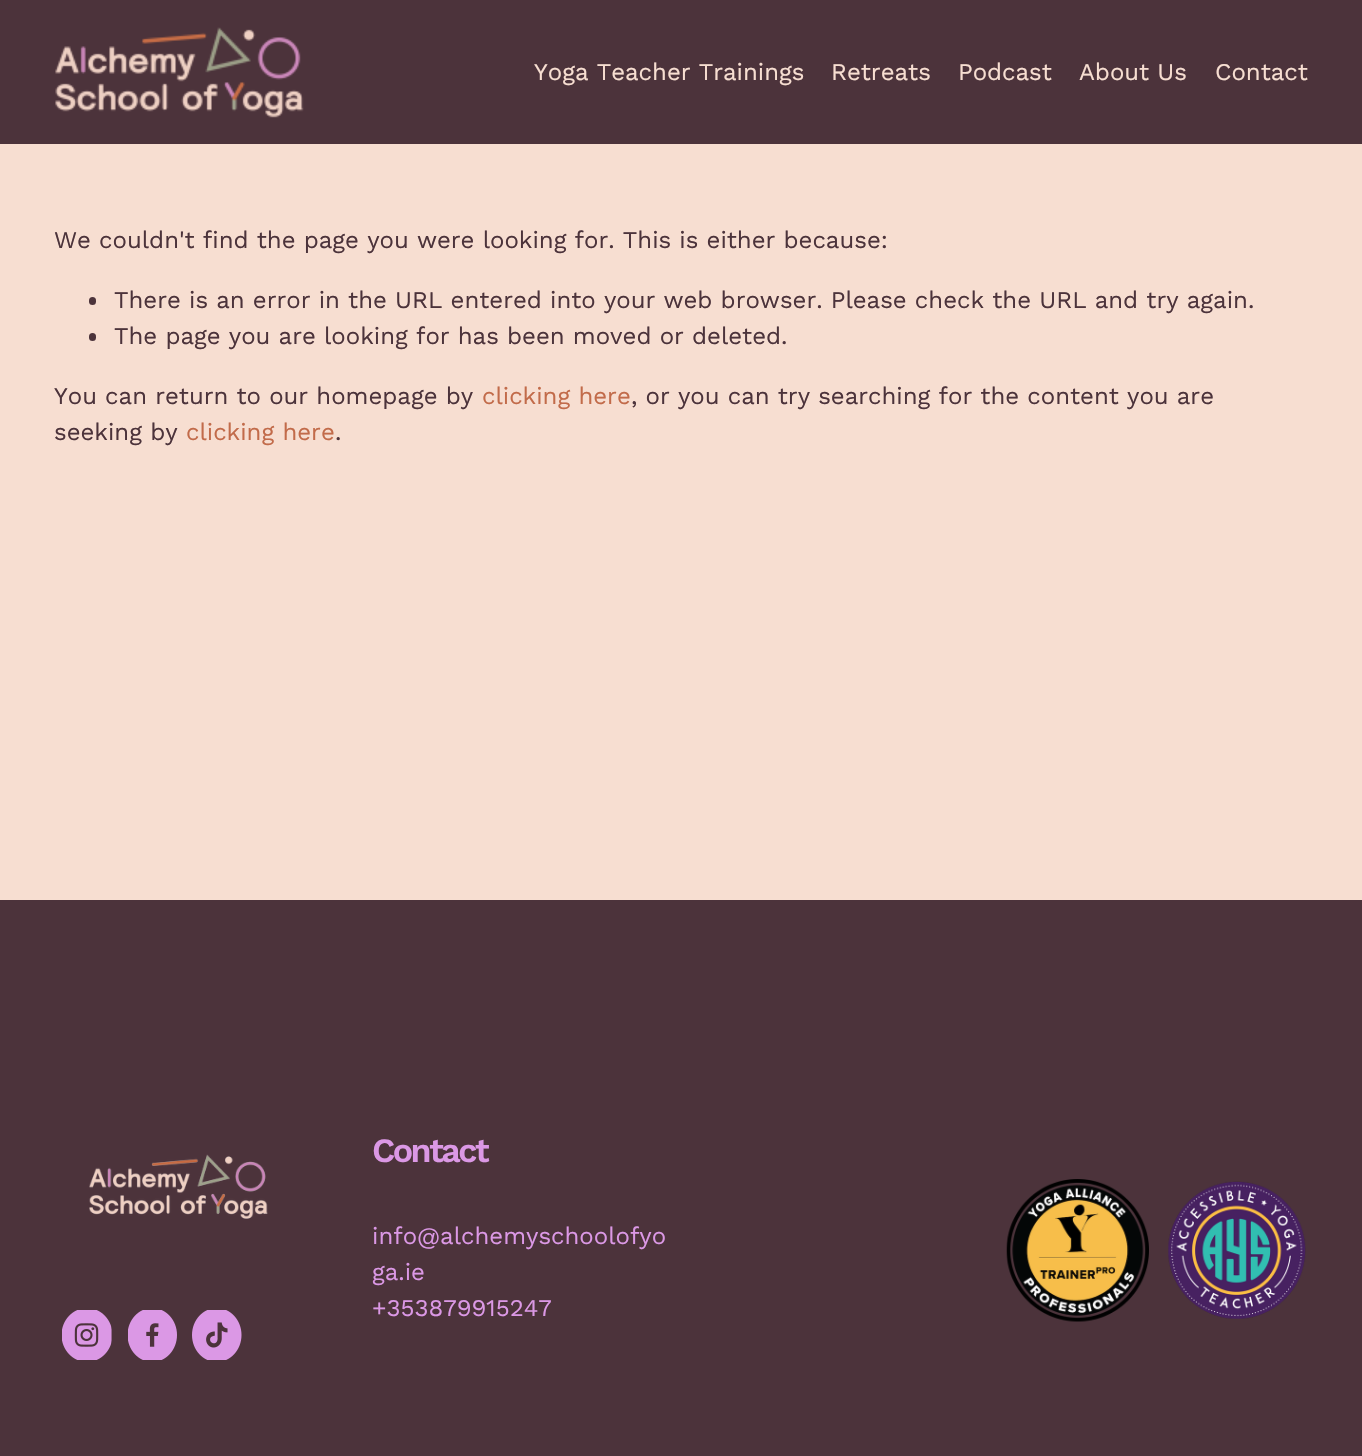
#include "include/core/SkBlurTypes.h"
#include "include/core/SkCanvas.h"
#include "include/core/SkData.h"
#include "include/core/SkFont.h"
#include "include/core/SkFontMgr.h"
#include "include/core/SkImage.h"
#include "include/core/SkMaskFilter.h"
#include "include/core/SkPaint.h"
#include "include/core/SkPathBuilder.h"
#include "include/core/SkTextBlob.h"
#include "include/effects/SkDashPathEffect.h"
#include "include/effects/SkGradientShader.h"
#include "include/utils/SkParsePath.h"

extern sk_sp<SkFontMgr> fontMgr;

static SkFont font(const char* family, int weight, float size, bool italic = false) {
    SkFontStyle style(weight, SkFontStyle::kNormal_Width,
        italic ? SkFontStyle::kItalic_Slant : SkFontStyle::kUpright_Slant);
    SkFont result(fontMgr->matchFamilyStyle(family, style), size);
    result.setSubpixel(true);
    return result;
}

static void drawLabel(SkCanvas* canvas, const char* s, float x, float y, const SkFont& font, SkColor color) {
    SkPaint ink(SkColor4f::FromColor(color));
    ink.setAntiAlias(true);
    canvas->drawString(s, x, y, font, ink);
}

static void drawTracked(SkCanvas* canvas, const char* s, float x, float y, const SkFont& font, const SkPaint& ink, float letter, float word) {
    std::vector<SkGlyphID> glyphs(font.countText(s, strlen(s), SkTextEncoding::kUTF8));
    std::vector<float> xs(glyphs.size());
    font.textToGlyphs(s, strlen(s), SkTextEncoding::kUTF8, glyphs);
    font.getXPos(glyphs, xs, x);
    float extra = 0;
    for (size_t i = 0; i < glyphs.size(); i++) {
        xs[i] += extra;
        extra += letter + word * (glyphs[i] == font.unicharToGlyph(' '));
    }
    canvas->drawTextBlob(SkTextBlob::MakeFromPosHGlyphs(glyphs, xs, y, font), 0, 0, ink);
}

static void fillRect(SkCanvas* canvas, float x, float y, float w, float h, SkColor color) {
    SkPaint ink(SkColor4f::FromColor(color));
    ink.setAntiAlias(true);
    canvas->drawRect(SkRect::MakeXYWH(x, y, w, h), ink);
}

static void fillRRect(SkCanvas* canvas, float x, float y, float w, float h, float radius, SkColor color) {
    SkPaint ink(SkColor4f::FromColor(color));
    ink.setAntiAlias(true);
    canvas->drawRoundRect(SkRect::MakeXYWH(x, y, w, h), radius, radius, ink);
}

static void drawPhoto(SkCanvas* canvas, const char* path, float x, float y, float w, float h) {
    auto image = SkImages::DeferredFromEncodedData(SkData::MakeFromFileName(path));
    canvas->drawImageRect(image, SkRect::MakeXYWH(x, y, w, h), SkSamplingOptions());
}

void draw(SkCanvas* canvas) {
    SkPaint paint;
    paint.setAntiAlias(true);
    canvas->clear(0xFFF7DED1);
    fillRect(canvas, 0, 0, 1362, 144, 0xFF4C333B);
    drawPhoto(canvas, "assets/img1.png", 55, 27, 249, 91);
    SkFont font1 = font("Work Sans", 400, 24);
    drawLabel(canvas, "Yoga Teacher Trainings", 534, 80, font1, 0xFFF7DED1);
    drawLabel(canvas, "Retreats", 831, 80, font1, 0xFFF7DED1);
    drawLabel(canvas, "Podcast", 958, 80, font1, 0xFFF7DED1);
    drawLabel(canvas, "About Us", 1079, 80, font1, 0xFFF7DED1);
    drawLabel(canvas, "Contact", 1215, 80, font1, 0xFFF7DED1);
    drawLabel(canvas, "We couldn't find the page you were looking for. This is either because:", 54, 248, font1, 0xFF4C333B);
    fillRRect(canvas, 89, 297, 7, 8, 3.5f, 0xFF4C333B);
    drawLabel(canvas, "There is an error in the URL entered into your web browser. Please check the URL and try again.", 114, 308, font1, 0xFF4C333B);
    fillRRect(canvas, 89, 333, 7, 8, 3.5f, 0xFF4C333B);
    drawLabel(canvas, "The page you are looking for has been moved or deleted.", 114, 344, font1, 0xFF4C333B);
    drawLabel(canvas, "You can return to our homepage by", 54, 404, font1, 0xFF4C333B);
    drawLabel(canvas, "clicking here", 482, 404, font1, 0xFFC26B4A);
    drawLabel(canvas, ", or you can try searching for the content you are", 631, 404, font1, 0xFF4C333B);
    drawLabel(canvas, "seeking by", 54, 440, font1, 0xFF4C333B);
    drawLabel(canvas, "clicking here", 186, 440, font1, 0xFFC26B4A);
    drawLabel(canvas, ".", 335, 440, font1, 0xFF4C333B);
    fillRect(canvas, 0, 900, 1362, 556, 0xFF4C333B);
    drawPhoto(canvas, "assets/img2.png", 89, 1154, 179, 65);
    SkFont font2 = font("Work Sans", 600, 34);
    paint.setColor(0xFFDB98E5);
    drawTracked(canvas, "Contact", 372, 1162, font2, paint, -2.5f, 0);
    drawLabel(canvas, "info@alchemyschoolofyo", 372, 1244, font1, 0xFFDB98E5);
    drawLabel(canvas, "ga.ie", 372, 1280, font1, 0xFFDB98E5);
    drawLabel(canvas, "+353879915247", 372, 1316, font1, 0xFFDB98E5);
    drawPhoto(canvas, "assets/img3.png", 1006, 1179, 143, 143);
    drawPhoto(canvas, "assets/img4.png", 1168, 1181, 138, 138);
    drawPhoto(canvas, "assets/img5.png", 62, 1310, 50, 50);
    drawPhoto(canvas, "assets/img6.png", 128, 1310, 49, 50);
    drawPhoto(canvas, "assets/img7.png", 192, 1310, 50, 50);
}
